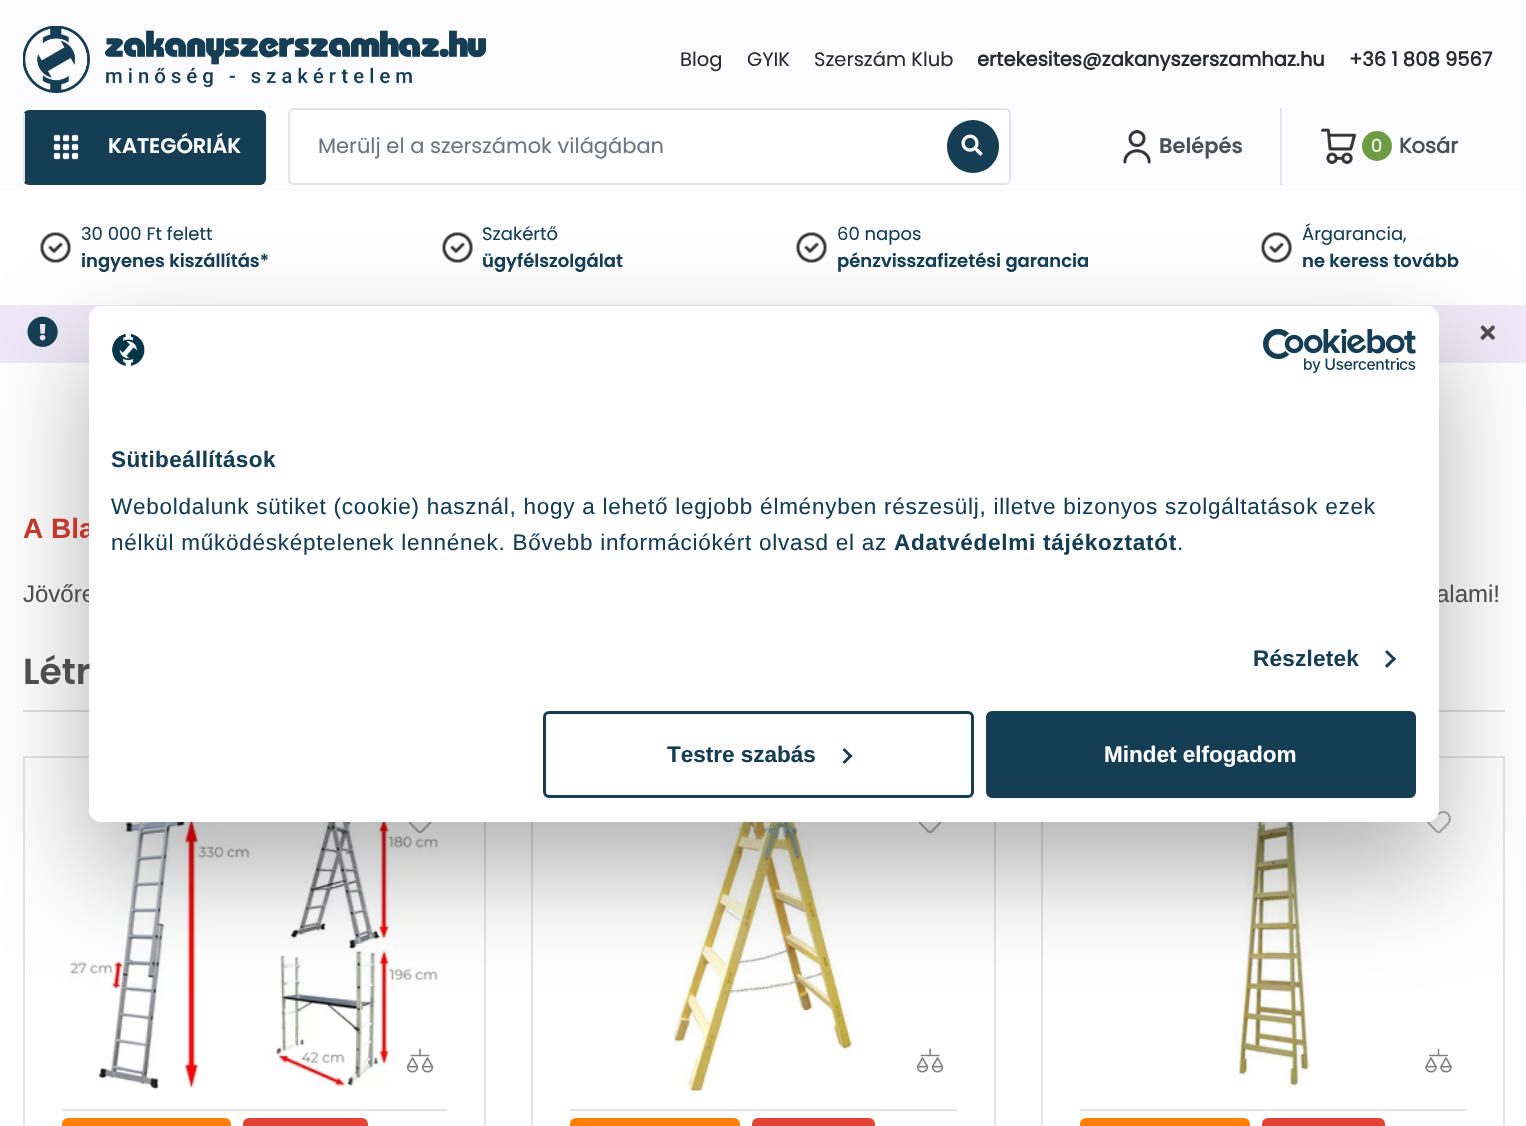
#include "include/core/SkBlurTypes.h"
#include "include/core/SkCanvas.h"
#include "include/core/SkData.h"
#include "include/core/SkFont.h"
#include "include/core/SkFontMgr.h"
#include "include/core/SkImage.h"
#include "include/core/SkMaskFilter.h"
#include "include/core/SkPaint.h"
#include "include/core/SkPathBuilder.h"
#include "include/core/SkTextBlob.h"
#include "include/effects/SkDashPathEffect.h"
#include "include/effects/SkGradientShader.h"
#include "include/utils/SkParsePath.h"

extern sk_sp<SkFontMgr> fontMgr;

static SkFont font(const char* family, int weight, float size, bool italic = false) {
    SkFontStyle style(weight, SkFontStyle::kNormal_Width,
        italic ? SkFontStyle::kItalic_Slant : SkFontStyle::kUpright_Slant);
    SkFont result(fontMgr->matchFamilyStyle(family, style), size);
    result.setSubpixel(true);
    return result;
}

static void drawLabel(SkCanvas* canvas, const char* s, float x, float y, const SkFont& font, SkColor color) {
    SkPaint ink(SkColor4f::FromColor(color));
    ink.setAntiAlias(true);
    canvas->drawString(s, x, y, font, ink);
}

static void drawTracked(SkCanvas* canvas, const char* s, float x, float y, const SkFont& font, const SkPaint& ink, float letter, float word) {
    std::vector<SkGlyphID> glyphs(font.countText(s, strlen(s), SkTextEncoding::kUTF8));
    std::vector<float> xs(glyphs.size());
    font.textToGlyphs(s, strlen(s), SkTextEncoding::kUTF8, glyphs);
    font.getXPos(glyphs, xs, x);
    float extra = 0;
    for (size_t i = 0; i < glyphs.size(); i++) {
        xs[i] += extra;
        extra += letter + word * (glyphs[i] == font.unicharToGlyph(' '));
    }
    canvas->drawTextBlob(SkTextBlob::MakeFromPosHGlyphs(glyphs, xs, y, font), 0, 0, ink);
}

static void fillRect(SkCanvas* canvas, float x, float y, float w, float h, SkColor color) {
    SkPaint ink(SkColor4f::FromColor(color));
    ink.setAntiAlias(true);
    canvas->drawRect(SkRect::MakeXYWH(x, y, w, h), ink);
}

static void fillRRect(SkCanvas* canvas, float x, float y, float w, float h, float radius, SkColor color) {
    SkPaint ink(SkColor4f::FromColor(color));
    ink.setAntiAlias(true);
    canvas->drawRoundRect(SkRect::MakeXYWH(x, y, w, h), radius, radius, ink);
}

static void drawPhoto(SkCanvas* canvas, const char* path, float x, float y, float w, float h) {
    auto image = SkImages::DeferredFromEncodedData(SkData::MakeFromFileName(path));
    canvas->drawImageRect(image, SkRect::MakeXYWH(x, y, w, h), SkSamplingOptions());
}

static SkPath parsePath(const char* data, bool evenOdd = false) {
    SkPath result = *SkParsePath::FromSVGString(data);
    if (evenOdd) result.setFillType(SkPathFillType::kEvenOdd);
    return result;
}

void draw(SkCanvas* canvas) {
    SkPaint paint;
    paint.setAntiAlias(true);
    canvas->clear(0xFFFFFFFF);
    fillRect(canvas, 0, 0, 1526, 191, 0xFFFCFCFE);
    drawPhoto(canvas, "assets/img1.png", 23, 26, 463, 67);
    SkFont font1 = font("Poppins", 400, 19.5f);
    drawLabel(canvas, "Blog", 680, 66, font1, 0xFF292B2C);
    drawLabel(canvas, "GYIK", 747, 66, font1, 0xFF292B2C);
    drawLabel(canvas, "Szerszám Klub", 814, 66, font1, 0xFF292B2C);
    SkFont font2 = font("Poppins", 700, 19.5f);
    drawLabel(canvas, "ertekesites@zakanyszerszamhaz.hu", 977, 66, font2, 0xFF292B2C);
    drawLabel(canvas, "+36 1 808 9567", 1349, 66, font2, 0xFF292B2C);
    fillRRect(canvas, 23, 110, 243, 75, 6, 0xFF153E55);
    fillRect(canvas, 23, 113, 2, 69, 0xFFE4E4E4);
    drawPhoto(canvas, "assets/img2.png", 53, 134, 26, 26);
    SkFont font3 = font("Poppins", 600, 21);
    drawLabel(canvas, "KATEGÓRIÁK", 108, 153, font3, 0xFFFFFFFF);
    paint.setColor(0xFFFFFFFF);
    canvas->drawRoundRect(SkRect::MakeXYWH(289, 109, 721, 75), 5, 5, paint);
    paint.setStroke(true);
    paint.setStrokeWidth(2);
    paint.setColor(0xFFE4E4E4);
    canvas->drawRoundRect(SkRect::MakeXYWH(289, 109, 721, 75), 5, 5, paint);
    SkFont font4 = font("Poppins", 400, 21);
    drawLabel(canvas, "Merülj el a szerszámok világában", 318, 153, font4, 0xFF6C757D);
    fillRRect(canvas, 947, 120, 52, 53, 26, 0xFF153E55);
    drawPhoto(canvas, "assets/img3.png", 961, 134, 22, 22);
    fillRect(canvas, 1280, 108, 2, 77, 0xFFE4E4E4);
    drawPhoto(canvas, "assets/img4.png", 1123, 130, 28, 34);
    drawLabel(canvas, "Belépés", 1159, 153, font3, 0xFF495057);
    drawPhoto(canvas, "assets/img5.png", 1320, 128, 37, 36);
    paint.setStroke(false);
    paint.setColor(0xFF6E9C45);
    canvas->drawCircle(1377, 146, 15, paint);
    SkFont font5 = font("Poppins", 400, 18);
    drawLabel(canvas, "0", 1371, 152, font5, 0xFFFFFFFF);
    SkFont font6 = font("Poppins", 700, 21);
    drawLabel(canvas, "Kosár", 1399, 153, font6, 0xFF495057);
    drawPhoto(canvas, "assets/img6.png", 40, 232, 31, 31);
    drawLabel(canvas, "30 000 Ft felett", 81, 240, font5, 0xFF153E55);
    SkFont font7 = font("Poppins", 600, 18);
    drawLabel(canvas, "ingyenes kiszállítás*", 81, 267, font7, 0xFF153E55);
    drawPhoto(canvas, "assets/img7.png", 442, 232, 31, 31);
    drawLabel(canvas, "Szakértő", 482, 240, font5, 0xFF153E55);
    drawLabel(canvas, "ügyfélszolgálat", 482, 267, font7, 0xFF153E55);
    drawPhoto(canvas, "assets/img7.png", 796, 232, 31, 31);
    drawLabel(canvas, "60 napos", 837, 240, font5, 0xFF153E55);
    drawLabel(canvas, "pénzvisszafizetési garancia", 837, 267, font7, 0xFF153E55);
    drawPhoto(canvas, "assets/img7.png", 1261, 232, 31, 31);
    drawLabel(canvas, "Árgarancia,", 1302, 240, font5, 0xFF153E55);
    drawLabel(canvas, "ne keress tovább", 1302, 267, font7, 0xFF153E55);
    fillRect(canvas, 0, 305, 1526, 58, 0xFFEFE9F7);
    drawPhoto(canvas, "assets/img8.png", 27, 316, 31, 31);
    drawPhoto(canvas, "assets/img9.png", 1480, 325, 15, 15);
    fillRect(canvas, 23, 710, 1482, 2, 0xFFE1E1E1);
    paint.setStroke(true);
    paint.setColor(0xFFE4E4E4);
    canvas->drawRect(SkRect::MakeXYWH(24, 757, 461, 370), paint);
    drawPhoto(canvas, "assets/img12.png", 70, 813, 370, 277);
    drawPhoto(canvas, "assets/img13.png", 408, 822, 24, 12);
    canvas->drawRect(SkRect::MakeXYWH(532, 757, 463, 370), paint);
    drawPhoto(canvas, "assets/img15.png", 673, 822, 180, 269);
    drawPhoto(canvas, "assets/img13.png", 918, 822, 24, 12);
    canvas->drawRect(SkRect::MakeXYWH(1042, 757, 462, 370), paint);
    drawPhoto(canvas, "assets/img16.png", 1236, 822, 74, 266);
    drawPhoto(canvas, "assets/img17.png", 1426, 811, 25, 23);
    paint.setStroke(false);
    paint.setColor(0x4D000000);
    paint.setMaskFilter(SkMaskFilter::MakeBlur(kNormal_SkBlurStyle, 51));
    canvas->drawRoundRect(SkRect::MakeXYWH(89, 354, 1350, 516), 12, 12, paint);
    paint.setMaskFilter(nullptr);
    SkFont font8 = font("Liberation Sans", 700, 28);
    drawLabel(canvas, "A Bla", 23, 538, font8, 0xFFC0392B);
    SkFont font9 = font("Liberation Sans", 400, 24);
    drawLabel(canvas, "Jövőre", 23, 602, font9, 0xFF4E4E4E);
    drawLabel(canvas, "alami!", 1436, 602, font9, 0xFF4E4E4E);
    fillRRect(canvas, 89, 306, 1350, 516, 12, 0xFFFFFFFF);
    drawPhoto(canvas, "assets/img10.png", 112, 334, 33, 32);
    drawPhoto(canvas, "assets/img11.png", 1263, 329, 153, 44);
    SkFont font10 = font("Liberation Sans", 700, 22.5f);
    paint.setColor(0xFF153E55);
    drawTracked(canvas, "Sütibeállítások", 111, 467, font10, paint, 0.4f, 0);
    SkFont font11 = font("Liberation Sans", 400, 22.5f);
    drawTracked(canvas, "Weboldalunk sütiket (cookie) használ, hogy a lehető legjobb élményben részesülj, illetve bizonyos szolgáltatások ezek", 111, 514, font11, paint, 0.75f, 0);
    drawTracked(canvas, "nélkül működésképtelenek lennének. Bővebb információkért olvasd el az", 111, 550, font11, paint, 0.75f, 0);
    drawTracked(canvas, "Adatvédelmi tájékoztatót", 894, 550, font10, paint, 0.75f, 0);
    drawTracked(canvas, ".", 1177, 550, font11, paint, 0.75f, 0);
    drawTracked(canvas, "Részletek", 1253, 666, font10, paint, 0.25f, 0);
    canvas->drawPath(parsePath("M1387 650L1396 659L1394 661L1385 652Z"), paint);
    canvas->drawPath(parsePath("M1394 657L1396 659L1387 668L1385 665.5Z"), paint);
    canvas->save();
    canvas->clipPath(parsePath("M101 306H1427C1433.5 306 1439 311.5 1439 318V810C1439 816.5 1433.5 822 1427 822H101C94.5 822 89 816.5 89 810V318C89 311.5 94.5 306 101 306Z"), true);
    fillRect(canvas, 89, 821, 1350, 1, 0xFFFFFFFF);
    canvas->restore();
    paint.setStroke(true);
    paint.setStrokeWidth(3);
    canvas->drawRoundRect(SkRect::MakeXYWH(544.5f, 712.5f, 428, 84), 4.5f, 4.5f, paint);
    drawLabel(canvas, "Testre szabás", 667, 762, font10, 0xFF153E55);
    paint.setStroke(false);
    canvas->drawPath(parsePath("M844.5 748L852.5 756L850.5 758L842.5 750Z"), paint);
    canvas->drawPath(parsePath("M850.5 754L852.5 756L844.5 764L842.5 762Z"), paint);
    canvas->drawRoundRect(SkRect::MakeXYWH(987.5f, 712.5f, 427, 84), 4.5f, 4.5f, paint);
    paint.setStroke(true);
    canvas->drawRoundRect(SkRect::MakeXYWH(987.5f, 712.5f, 427, 84), 4.5f, 4.5f, paint);
    drawLabel(canvas, "Mindet elfogadom", 1104, 762, font10, 0xFFFFFFFF);
    SkFont font12 = font("Poppins", 600, 36);
    drawLabel(canvas, "Létr", 23, 684, font12, 0xFF4E4E4E);
    fillRect(canvas, 62, 1109, 385, 2, 0xFFE4E4E4);
    drawPhoto(canvas, "assets/img14.png", 406, 1048, 28, 25);
    fillRRect(canvas, 62, 1118, 169, 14, 6, 0xFFFF8000);
    fillRRect(canvas, 243, 1118, 125, 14, 6, 0xFFE44235);
    fillRect(canvas, 570, 1109, 387, 2, 0xFFE4E4E4);
    drawPhoto(canvas, "assets/img14.png", 916, 1048, 28, 25);
    fillRRect(canvas, 570, 1118, 170, 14, 6, 0xFFFF8000);
    fillRRect(canvas, 752, 1118, 123, 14, 6, 0xFFE44235);
    fillRect(canvas, 1080, 1109, 386, 2, 0xFFE4E4E4);
    drawPhoto(canvas, "assets/img18.png", 1425, 1048, 27, 25);
    fillRRect(canvas, 1080, 1118, 170, 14, 6, 0xFFFF8000);
    fillRRect(canvas, 1262, 1118, 123, 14, 6, 0xFFE44235);
}
